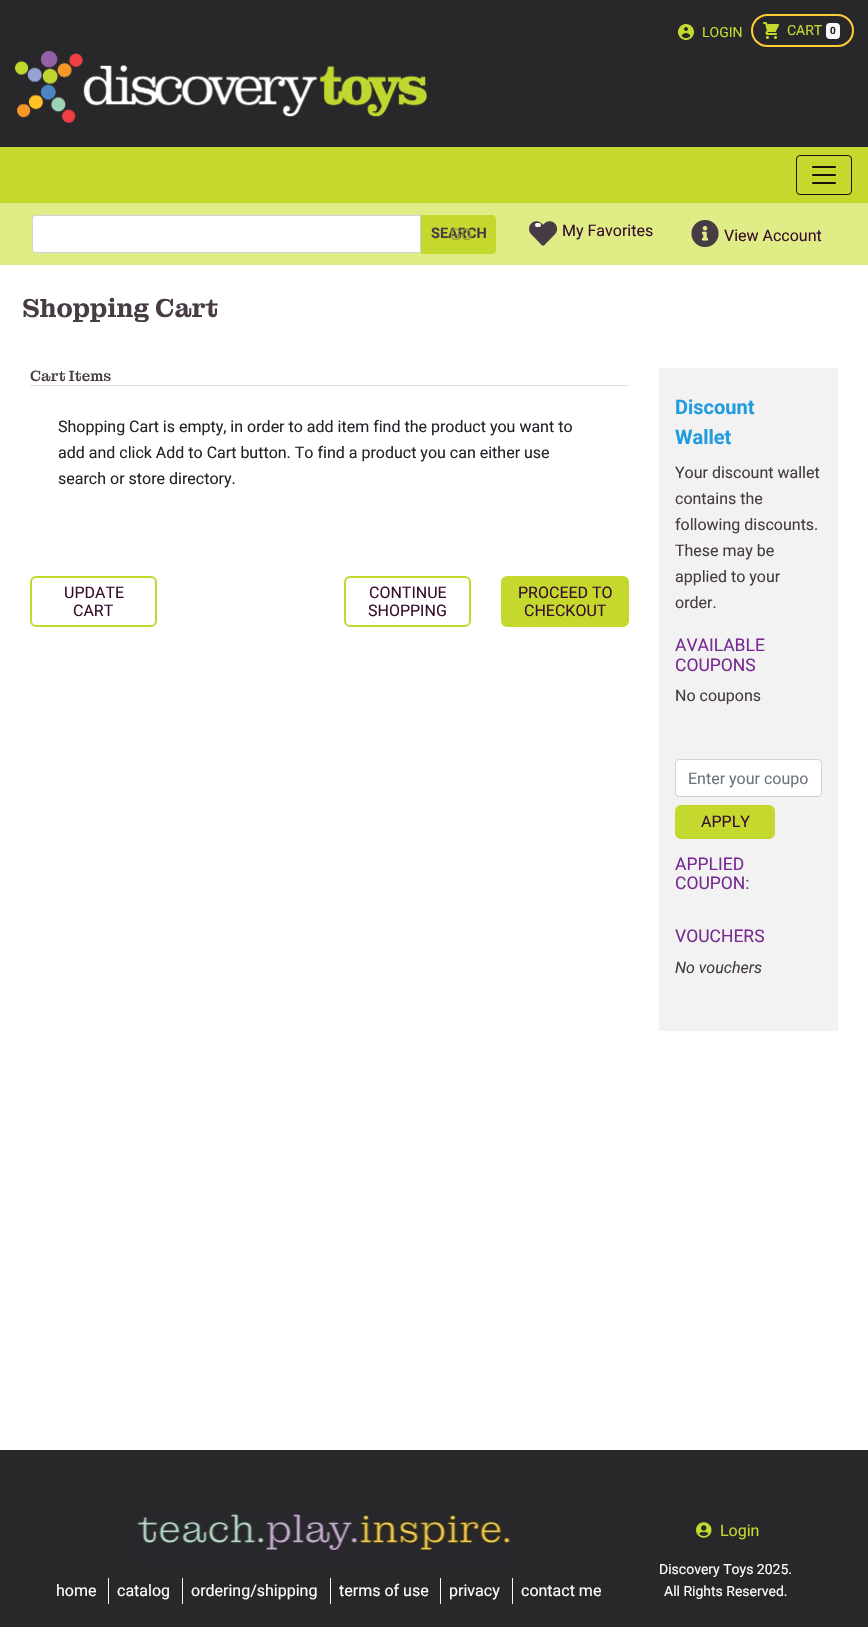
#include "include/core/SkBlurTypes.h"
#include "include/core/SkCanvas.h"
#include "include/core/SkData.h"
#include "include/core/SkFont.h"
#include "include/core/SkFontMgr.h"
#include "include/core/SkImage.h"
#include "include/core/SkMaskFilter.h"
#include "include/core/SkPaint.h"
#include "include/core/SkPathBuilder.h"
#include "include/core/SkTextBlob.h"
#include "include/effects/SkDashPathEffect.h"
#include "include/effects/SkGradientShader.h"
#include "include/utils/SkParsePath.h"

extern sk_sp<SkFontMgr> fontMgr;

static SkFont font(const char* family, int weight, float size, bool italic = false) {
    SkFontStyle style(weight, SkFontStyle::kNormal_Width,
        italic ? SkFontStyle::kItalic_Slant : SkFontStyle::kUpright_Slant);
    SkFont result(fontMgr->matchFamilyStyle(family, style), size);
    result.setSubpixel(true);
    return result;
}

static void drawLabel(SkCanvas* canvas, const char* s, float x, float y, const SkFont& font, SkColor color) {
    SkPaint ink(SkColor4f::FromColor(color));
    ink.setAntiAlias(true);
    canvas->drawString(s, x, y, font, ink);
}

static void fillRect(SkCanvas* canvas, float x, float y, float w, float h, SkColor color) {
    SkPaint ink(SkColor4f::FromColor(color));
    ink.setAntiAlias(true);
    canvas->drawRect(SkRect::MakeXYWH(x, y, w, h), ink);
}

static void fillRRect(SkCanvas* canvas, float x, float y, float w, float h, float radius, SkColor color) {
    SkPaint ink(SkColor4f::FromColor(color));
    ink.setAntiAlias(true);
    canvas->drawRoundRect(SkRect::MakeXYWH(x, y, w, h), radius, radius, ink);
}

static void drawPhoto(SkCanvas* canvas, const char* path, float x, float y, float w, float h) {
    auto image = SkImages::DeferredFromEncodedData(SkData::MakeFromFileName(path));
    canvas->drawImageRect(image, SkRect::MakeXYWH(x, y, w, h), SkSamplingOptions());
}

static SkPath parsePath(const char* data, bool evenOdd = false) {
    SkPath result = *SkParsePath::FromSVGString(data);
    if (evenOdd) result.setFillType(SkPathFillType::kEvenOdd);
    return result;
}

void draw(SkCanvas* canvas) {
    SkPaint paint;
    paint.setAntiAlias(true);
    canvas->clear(0xFFFFFFFF);
    fillRect(canvas, 0, 0, 868, 147, 0xFF28282B);
    drawPhoto(canvas, "assets/img1.png", 678, 24, 16, 16);
    SkFont font1 = font("Roboto", 400, 14);
    drawLabel(canvas, "LOGIN", 702, 37, font1, 0xFFC4D82E);
    drawPhoto(canvas, "assets/img2.png", 763, 22, 16, 17);
    paint.setStroke(true);
    paint.setStrokeWidth(2);
    paint.setColor(0xFFFFCE34);
    canvas->drawRoundRect(SkRect::MakeXYWH(752, 15, 101, 31), 15.5f, 15.5f, paint);
    drawLabel(canvas, "CART", 787, 35, font1, 0xFFC4D82E);
    fillRRect(canvas, 826, 23, 14, 16, 4, 0xFFF8F9FA);
    SkFont font2 = font("Roboto", 700, 10);
    drawLabel(canvas, "0", 830, 34, font2, 0xFF212529);
    drawPhoto(canvas, "assets/img3.png", 15, 51, 412, 72);
    fillRect(canvas, 0, 147, 868, 56, 0xFFC4D82E);
    paint.setStrokeWidth(1);
    paint.setColor(0xFF1A1110);
    canvas->drawRoundRect(SkRect::MakeXYWH(796.5f, 155.5f, 55, 39), 3.5f, 3.5f, paint);
    drawPhoto(canvas, "assets/img4.png", 812, 166, 24, 18);
    fillRect(canvas, 0, 203, 868, 62, 0xFFE0EC85);
    paint.setStroke(false);
    paint.setColor(0xFFFFFFFF);
    canvas->drawPath(parsePath("M36 215.5H420.5V252.5H36C34 252.5 32.5 251 32.5 249V219C32.5 217 34 215.5 36 215.5Z"), paint);
    paint.setStroke(true);
    paint.setColor(0xFFCED4DA);
    canvas->drawPath(parsePath("M36 215.5H420.5V252.5H36C34 252.5 32.5 251 32.5 249V219C32.5 217 34 215.5 36 215.5Z"), paint);
    paint.setStroke(false);
    paint.setColor(0xFFC4D82E);
    canvas->drawPath(parsePath("M421 215H492C494 215 496 217 496 219V250C496 252 494 254 492 254H421Z"), paint);
    SkFont font3 = font("Roboto", 700, 14.5f);
    drawLabel(canvas, "SEARCH", 431, 238, font3, 0xFF473B44);
    SkFont font4 = font("Roboto", 400, 16);
    drawLabel(canvas, "GO", 450, 240, font4, 0xFF959D36);
    drawPhoto(canvas, "assets/img5.png", 529, 221, 29, 25);
    fillRRect(canvas, 535, 223, 6, 4, 2, 0xFFFFFFFF);
    drawLabel(canvas, "My Favorites", 562, 236, font4, 0xFF380F2D);
    drawPhoto(canvas, "assets/img6.png", 691, 220, 28, 27);
    drawLabel(canvas, "View Account", 724, 241, font4, 0xFF380F2D);
    SkFont font5 = font("Montagu Slab", 600, 26.25f);
    drawLabel(canvas, "Shopping Cart", 22, 317, font5, 0xFF473B44);
    SkFont font6 = font("Montagu Slab", 500, 15);
    drawLabel(canvas, "Cart Items", 30, 381, font6, 0xFF473B44);
    fillRect(canvas, 30, 385, 599, 1, 0xFFDEE2E6);
    drawLabel(canvas, "Shopping Cart is empty, in order to add item find the product you want to", 58, 432, font4, 0xFF212529);
    drawLabel(canvas, "add and click Add to Cart button. To find a product you can either use", 58, 458, font4, 0xFF212529);
    drawLabel(canvas, "search or store directory.", 58, 484, font4, 0xFF212529);
    paint.setStroke(true);
    paint.setStrokeWidth(2);
    canvas->drawRoundRect(SkRect::MakeXYWH(31, 577, 125, 49), 5, 5, paint);
    drawLabel(canvas, "UPDATE", 64, 598, font4, 0xFF380F2D);
    drawLabel(canvas, "CART", 73, 616, font4, 0xFF380F2D);
    canvas->drawRoundRect(SkRect::MakeXYWH(345, 577, 125, 49), 5, 5, paint);
    drawLabel(canvas, "CONTINUE", 369, 598, font4, 0xFF380F2D);
    drawLabel(canvas, "SHOPPING", 368, 616, font4, 0xFF380F2D);
    paint.setStroke(false);
    canvas->drawRoundRect(SkRect::MakeXYWH(502, 577, 126, 49), 5, 5, paint);
    paint.setStroke(true);
    canvas->drawRoundRect(SkRect::MakeXYWH(502, 577, 126, 49), 5, 5, paint);
    drawLabel(canvas, "PROCEED TO", 518, 598, font4, 0xFF380F2D);
    drawLabel(canvas, "CHECKOUT", 524, 616, font4, 0xFF380F2D);
    fillRect(canvas, 659, 368, 179, 663, 0xFFF2F2F2);
    SkFont font7 = font("Roboto", 700, 20);
    drawLabel(canvas, "Discount", 675, 414, font7, 0xFF209CDF);
    drawLabel(canvas, "Wallet", 675, 444, font7, 0xFF209CDF);
    drawLabel(canvas, "Your discount wallet", 675, 478, font4, 0xFF473B44);
    drawLabel(canvas, "contains the", 675, 504, font4, 0xFF473B44);
    drawLabel(canvas, "following discounts.", 675, 530, font4, 0xFF473B44);
    drawLabel(canvas, "These may be", 675, 556, font4, 0xFF473B44);
    drawLabel(canvas, "applied to your", 675, 582, font4, 0xFF473B44);
    drawLabel(canvas, "order.", 675, 608, font4, 0xFF473B44);
    SkFont font8 = font("Roboto", 400, 17.5f);
    drawLabel(canvas, "AVAILABLE", 675, 651, font8, 0xFF782B90);
    drawLabel(canvas, "COUPONS", 675, 671, font8, 0xFF782B90);
    drawLabel(canvas, "No coupons", 675, 701, font4, 0xFF473B44);
    paint.setStroke(false);
    paint.setColor(0xFFFFFFFF);
    canvas->drawRoundRect(SkRect::MakeXYWH(675.5f, 759.5f, 146, 37), 3.5f, 3.5f, paint);
    paint.setStroke(true);
    paint.setStrokeWidth(1);
    paint.setColor(0xFFCED4DA);
    canvas->drawRoundRect(SkRect::MakeXYWH(675.5f, 759.5f, 146, 37), 3.5f, 3.5f, paint);
    drawLabel(canvas, "Enter your coupo", 688, 784, font4, 0xFF6C757D);
    paint.setStroke(false);
    paint.setColor(0xFFC4D82E);
    canvas->drawRoundRect(SkRect::MakeXYWH(676, 806, 98, 32), 5, 5, paint);
    paint.setStroke(true);
    paint.setStrokeWidth(2);
    canvas->drawRoundRect(SkRect::MakeXYWH(676, 806, 98, 32), 5, 5, paint);
    drawLabel(canvas, "APPLY", 701, 827, font4, 0xFF380F2D);
    drawLabel(canvas, "APPLIED", 675, 870, font8, 0xFF782B90);
    drawLabel(canvas, "COUPON:", 675, 889, font8, 0xFF782B90);
    drawLabel(canvas, "VOUCHERS", 675, 942, font8, 0xFF782B90);
    SkFont font9 = font("Roboto", 400, 16, true);
    drawLabel(canvas, "No vouchers", 675, 973, font9, 0xFF473B44);
    fillRect(canvas, 0, 1450, 868, 177, 0xFF28282B);
    drawPhoto(canvas, "assets/img7.png", 136, 1513, 376, 49);
    drawLabel(canvas, "home", 56, 1596, font4, 0xFFFFFFFF);
    fillRect(canvas, 108, 1578, 1, 26, 0xFFF8F9FA);
    drawLabel(canvas, "catalog", 117, 1596, font4, 0xFFFFFFFF);
    fillRect(canvas, 182, 1578, 1, 26, 0xFFF8F9FA);
    drawLabel(canvas, "ordering/shipping", 191, 1596, font4, 0xFFFFFFFF);
    fillRect(canvas, 330, 1578, 1, 26, 0xFFF8F9FA);
    drawLabel(canvas, "terms of use", 339, 1596, font4, 0xFFFFFFFF);
    fillRect(canvas, 440, 1578, 1, 26, 0xFFF8F9FA);
    drawLabel(canvas, "privacy", 449, 1596, font4, 0xFFFFFFFF);
    fillRect(canvas, 512, 1578, 1, 26, 0xFFF8F9FA);
    drawLabel(canvas, "contact me", 521, 1596, font4, 0xFFFFFFFF);
    drawPhoto(canvas, "assets/img8.png", 696, 1522, 16, 16);
    drawLabel(canvas, "Login", 720, 1536, font4, 0xFFC4D82E);
    drawLabel(canvas, "Discovery Toys 2025.", 659, 1574, font1, 0xFFFFFFFF);
    drawLabel(canvas, "All Rights Reserved.", 664, 1596, font1, 0xFFFFFFFF);
}
